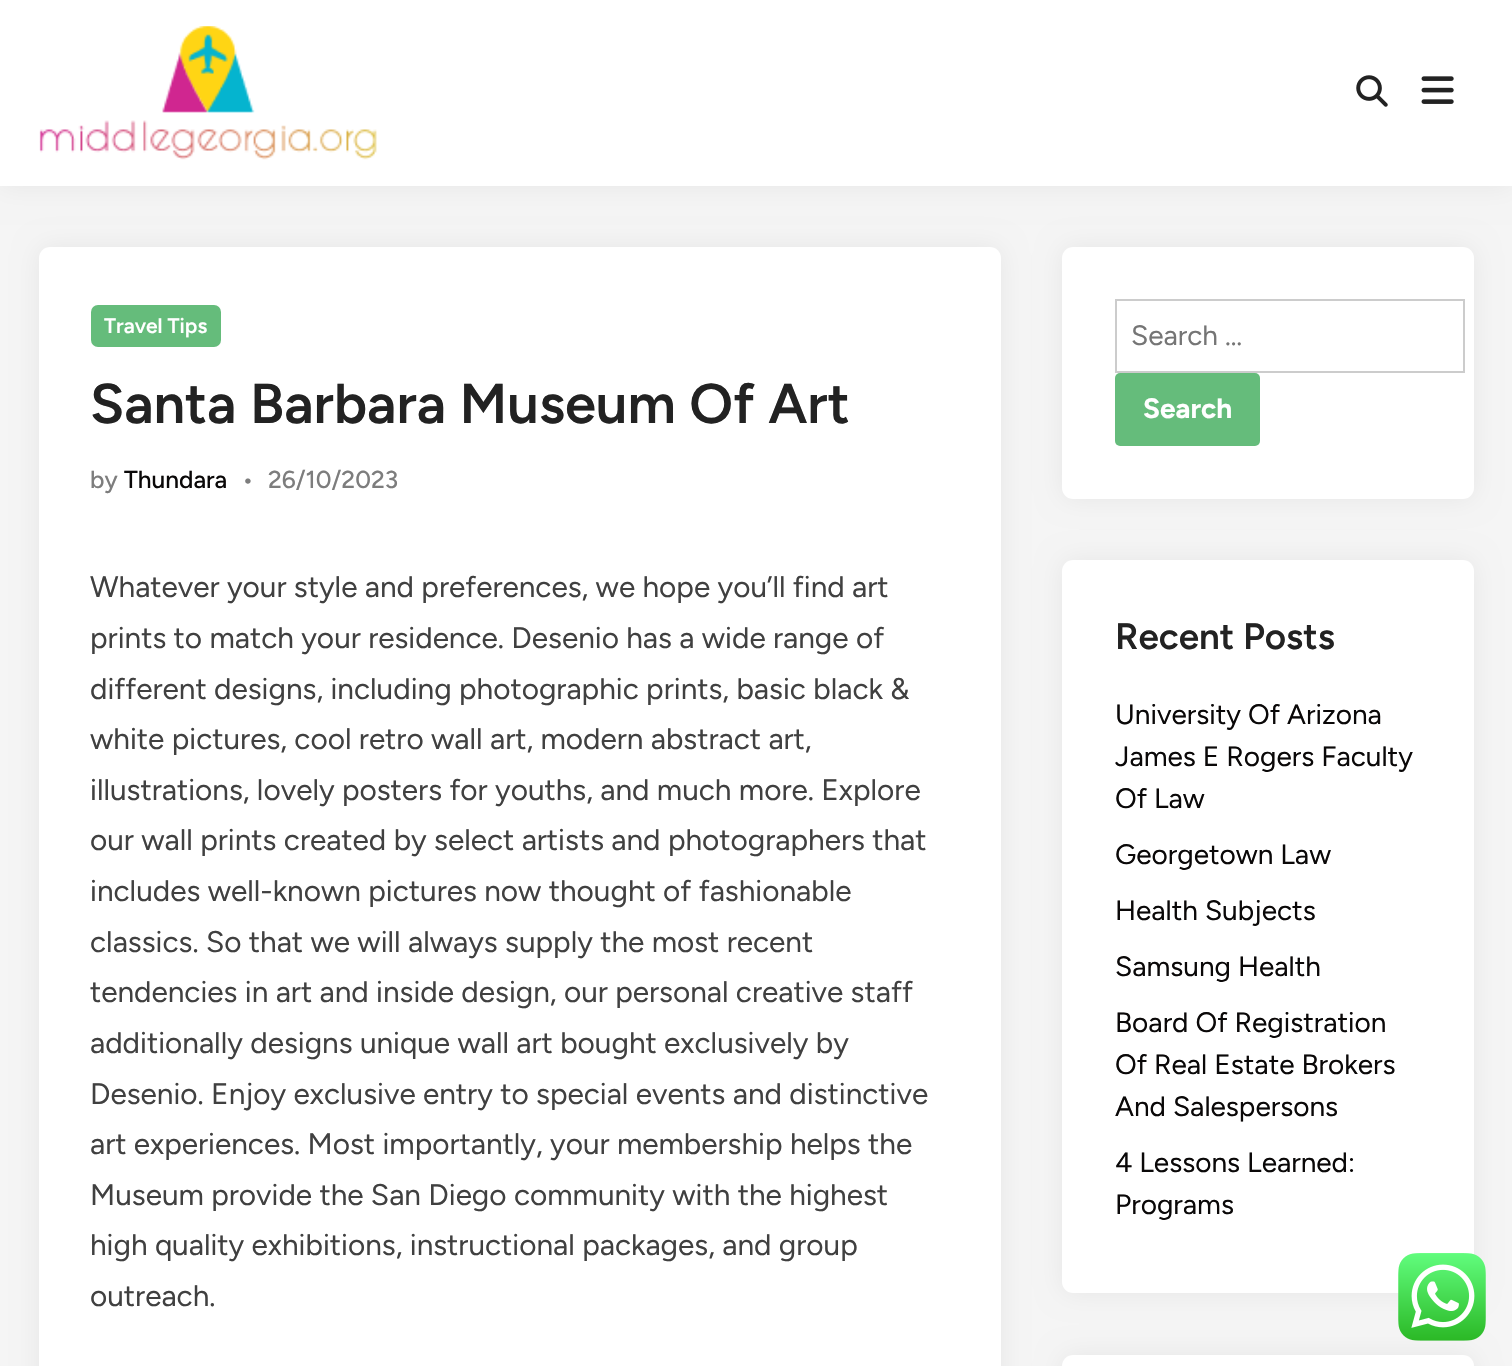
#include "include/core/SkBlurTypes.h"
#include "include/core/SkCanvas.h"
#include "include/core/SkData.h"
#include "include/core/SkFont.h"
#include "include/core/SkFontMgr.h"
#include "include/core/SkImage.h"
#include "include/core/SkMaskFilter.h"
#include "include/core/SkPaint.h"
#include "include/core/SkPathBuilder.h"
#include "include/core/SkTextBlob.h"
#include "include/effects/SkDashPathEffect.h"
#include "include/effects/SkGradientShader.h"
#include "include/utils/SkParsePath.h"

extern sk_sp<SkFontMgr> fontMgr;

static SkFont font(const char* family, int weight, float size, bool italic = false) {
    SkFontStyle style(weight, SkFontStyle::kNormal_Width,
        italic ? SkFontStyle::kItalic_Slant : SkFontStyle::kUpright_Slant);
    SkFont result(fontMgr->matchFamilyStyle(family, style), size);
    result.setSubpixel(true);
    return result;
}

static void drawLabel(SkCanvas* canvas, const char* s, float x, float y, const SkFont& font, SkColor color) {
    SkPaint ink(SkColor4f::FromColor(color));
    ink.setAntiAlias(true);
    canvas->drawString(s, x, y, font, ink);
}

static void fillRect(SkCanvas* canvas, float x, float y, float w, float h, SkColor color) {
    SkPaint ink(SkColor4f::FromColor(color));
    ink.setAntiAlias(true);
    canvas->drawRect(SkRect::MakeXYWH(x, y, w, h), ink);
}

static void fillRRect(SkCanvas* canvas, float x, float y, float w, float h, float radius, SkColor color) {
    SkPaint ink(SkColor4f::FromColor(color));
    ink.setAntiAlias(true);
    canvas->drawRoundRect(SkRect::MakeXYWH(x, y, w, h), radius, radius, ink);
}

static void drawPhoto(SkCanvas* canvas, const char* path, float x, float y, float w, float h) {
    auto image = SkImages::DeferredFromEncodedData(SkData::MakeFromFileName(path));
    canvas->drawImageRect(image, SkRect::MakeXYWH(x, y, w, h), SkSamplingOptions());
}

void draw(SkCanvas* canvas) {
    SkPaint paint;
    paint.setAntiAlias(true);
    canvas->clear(0xFFF5F5F5);
    paint.setColor(0x0F000000);
    paint.setMaskFilter(SkMaskFilter::MakeBlur(kNormal_SkBlurStyle, 13));
    canvas->drawRect(SkRect::MakeXYWH(0, 0, 1512, 186), paint);
    paint.setMaskFilter(nullptr);
    fillRect(canvas, 0, 0, 1512, 186, 0xFFFFFFFF);
    drawPhoto(canvas, "assets/img1.png", 39, 26, 338, 134);
    drawPhoto(canvas, "assets/img2.png", 1356, 75, 32, 32);
    drawPhoto(canvas, "assets/img3.png", 1421, 76, 33, 28);
    paint.setMaskFilter(SkMaskFilter::MakeBlur(kNormal_SkBlurStyle, 13));
    canvas->drawRoundRect(SkRect::MakeXYWH(39, 247, 962, 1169), 11, 11, paint);
    paint.setMaskFilter(nullptr);
    fillRRect(canvas, 39, 247, 962, 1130, 11, 0xFFFFFFFF);
    fillRRect(canvas, 91, 305, 130, 42, 7, 0xFF65BC7B);
    SkFont font1 = font("Figtree", 600, 21);
    drawLabel(canvas, "Travel Tips", 104, 333, font1, 0xFFFFFFFF);
    SkFont font2 = font("Figtree", 600, 56);
    drawLabel(canvas, "Santa Barbara Museum Of Art", 90, 423, font2, 0xFF222222);
    SkFont font3 = font("Figtree", 500, 24.5f);
    drawLabel(canvas, "by", 90, 488, font3, 0xFF7D7D7D);
    drawLabel(canvas, "Thundara", 124, 488, font3, 0xFF0A0808);
    drawLabel(canvas, "•", 242, 488, font3, 0xFF7D7D7D);
    drawLabel(canvas, "26/10/2023", 268, 488, font3, 0xFF7D7D7D);
    SkFont font4 = font("Figtree", 400, 29.75f);
    drawLabel(canvas, "Whatever your style and preferences, we hope you’ll find art", 90, 597, font4, 0xFF404040);
    drawLabel(canvas, "prints to match your residence. Desenio has a wide range of", 90, 648, font4, 0xFF404040);
    drawLabel(canvas, "different designs, including photographic prints, basic black &", 90, 699, font4, 0xFF404040);
    drawLabel(canvas, "white pictures, cool retro wall art, modern abstract art,", 90, 749, font4, 0xFF404040);
    drawLabel(canvas, "illustrations, lovely posters for youths, and much more. Explore", 90, 800, font4, 0xFF404040);
    drawLabel(canvas, "our wall prints created by select artists and photographers that", 90, 850, font4, 0xFF404040);
    drawLabel(canvas, "includes well-known pictures now thought of fashionable", 90, 901, font4, 0xFF404040);
    drawLabel(canvas, "classics. So that we will always supply the most recent", 90, 952, font4, 0xFF404040);
    drawLabel(canvas, "tendencies in art and inside design, our personal creative staff", 90, 1002, font4, 0xFF404040);
    drawLabel(canvas, "additionally designs unique wall art bought exclusively by", 90, 1053, font4, 0xFF404040);
    drawLabel(canvas, "Desenio. Enjoy exclusive entry to special events and distinctive", 90, 1104, font4, 0xFF404040);
    drawLabel(canvas, "art experiences. Most importantly, your membership helps the", 90, 1154, font4, 0xFF404040);
    drawLabel(canvas, "Museum provide the San Diego community with the highest", 90, 1205, font4, 0xFF404040);
    drawLabel(canvas, "high quality exhibitions, instructional packages, and group", 90, 1255, font4, 0xFF404040);
    drawLabel(canvas, "outreach.", 90, 1306, font4, 0xFF404040);
    paint.setMaskFilter(SkMaskFilter::MakeBlur(kNormal_SkBlurStyle, 13));
    canvas->drawRoundRect(SkRect::MakeXYWH(1062, 247, 412, 252), 11, 11, paint);
    paint.setMaskFilter(nullptr);
    fillRRect(canvas, 1062, 247, 412, 252, 11, 0xFFFFFFFF);
    paint.setStroke(true);
    paint.setStrokeWidth(2);
    paint.setColor(0xFFCCCCCC);
    canvas->drawRect(SkRect::MakeXYWH(1116, 300, 348, 72), paint);
    SkFont font5 = font("Figtree", 400, 28);
    drawLabel(canvas, "Search …", 1131, 345, font5, 0xFF757575);
    fillRRect(canvas, 1115, 373, 145, 73, 5, 0xFF65BC7B);
    SkFont font6 = font("Figtree", 700, 28);
    drawLabel(canvas, "Search", 1143, 418, font6, 0xFFFFFFFF);
    paint.setStroke(false);
    paint.setColor(0x0F000000);
    paint.setMaskFilter(SkMaskFilter::MakeBlur(kNormal_SkBlurStyle, 13));
    canvas->drawRoundRect(SkRect::MakeXYWH(1062, 560, 412, 733), 11, 11, paint);
    paint.setMaskFilter(nullptr);
    fillRRect(canvas, 1062, 560, 412, 733, 11, 0xFFFFFFFF);
    SkFont font7 = font("Figtree", 600, 36.75f);
    drawLabel(canvas, "Recent Posts", 1115, 649, font7, 0xFF222222);
    drawLabel(canvas, "University Of Arizona", 1115, 724, font5, 0xFF0A0808);
    drawLabel(canvas, "James E Rogers Faculty", 1115, 766, font5, 0xFF0A0808);
    drawLabel(canvas, "Of Law", 1115, 808, font5, 0xFF0A0808);
    drawLabel(canvas, "Georgetown Law", 1115, 864, font5, 0xFF0A0808);
    drawLabel(canvas, "Health Subjects", 1115, 920, font5, 0xFF0A0808);
    drawLabel(canvas, "Samsung Health", 1115, 976, font5, 0xFF0A0808);
    drawLabel(canvas, "Board Of Registration", 1115, 1032, font5, 0xFF0A0808);
    drawLabel(canvas, "Of Real Estate Brokers", 1115, 1074, font5, 0xFF0A0808);
    drawLabel(canvas, "And Salespersons", 1115, 1116, font5, 0xFF0A0808);
    drawLabel(canvas, "4 Lessons Learned:", 1115, 1172, font5, 0xFF0A0808);
    drawLabel(canvas, "Programs", 1115, 1214, font5, 0xFF0A0808);
    paint.setMaskFilter(SkMaskFilter::MakeBlur(kNormal_SkBlurStyle, 13));
    canvas->drawRoundRect(SkRect::MakeXYWH(1062, 1355, 412, 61), 11, 11, paint);
    paint.setMaskFilter(nullptr);
    fillRRect(canvas, 1062, 1355, 412, 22, 11, 0xFFFFFFFF);
    drawPhoto(canvas, "assets/img4.png", 1398, 1253, 88, 88);
}
